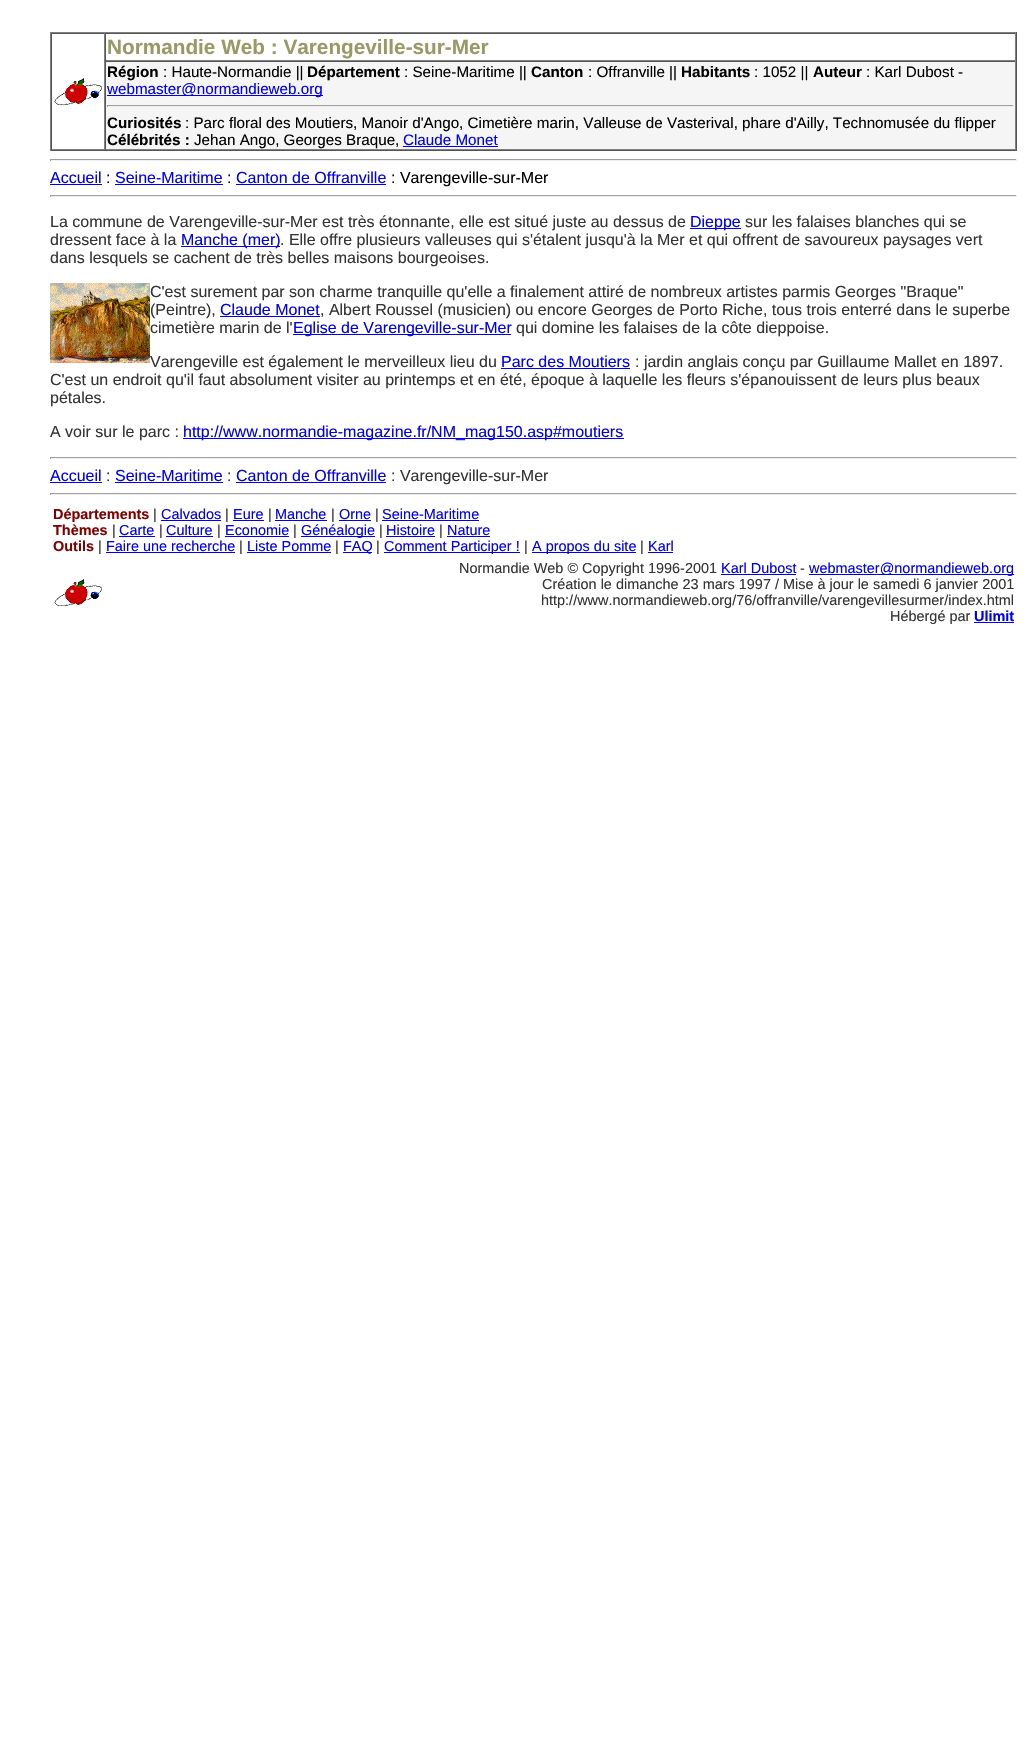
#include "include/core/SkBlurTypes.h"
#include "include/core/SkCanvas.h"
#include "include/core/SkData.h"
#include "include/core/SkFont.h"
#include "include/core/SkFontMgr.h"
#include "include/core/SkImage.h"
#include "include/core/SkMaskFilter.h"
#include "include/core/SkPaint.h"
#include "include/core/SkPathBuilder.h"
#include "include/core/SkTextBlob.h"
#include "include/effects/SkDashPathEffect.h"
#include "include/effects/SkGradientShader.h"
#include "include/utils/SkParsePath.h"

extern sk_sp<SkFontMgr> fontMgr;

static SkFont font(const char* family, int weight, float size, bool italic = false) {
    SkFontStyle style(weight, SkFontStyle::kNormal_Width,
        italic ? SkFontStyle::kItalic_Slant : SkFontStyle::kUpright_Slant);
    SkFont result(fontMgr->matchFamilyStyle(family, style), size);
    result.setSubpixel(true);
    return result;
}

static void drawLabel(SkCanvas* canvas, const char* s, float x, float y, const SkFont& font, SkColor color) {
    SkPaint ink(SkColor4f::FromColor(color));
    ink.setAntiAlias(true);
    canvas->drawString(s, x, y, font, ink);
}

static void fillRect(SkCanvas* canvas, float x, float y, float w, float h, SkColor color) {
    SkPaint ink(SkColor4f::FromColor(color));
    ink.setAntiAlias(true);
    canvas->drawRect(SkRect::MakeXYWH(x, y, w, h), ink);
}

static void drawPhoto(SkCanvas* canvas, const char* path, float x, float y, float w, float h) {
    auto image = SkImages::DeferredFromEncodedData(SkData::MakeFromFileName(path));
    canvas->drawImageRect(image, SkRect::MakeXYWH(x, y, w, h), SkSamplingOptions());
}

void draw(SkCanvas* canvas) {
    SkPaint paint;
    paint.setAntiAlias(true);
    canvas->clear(0xFFFFFFFF);
    fillRect(canvas, 50, 32, 967, 1, 0xFF808080);
    fillRect(canvas, 1016, 32, 1, 119, 0xFF555555);
    fillRect(canvas, 50, 150, 967, 1, 0xFF555555);
    fillRect(canvas, 50, 32, 1, 119, 0xFF808080);
    fillRect(canvas, 51, 33, 965, 1, 0xFF555555);
    fillRect(canvas, 104, 33, 1, 117, 0xFF808080);
    fillRect(canvas, 51, 149, 54, 1, 0xFF808080);
    fillRect(canvas, 51, 33, 1, 117, 0xFF555555);
    drawPhoto(canvas, "assets/img1.png", 54, 78, 48, 27);
    fillRect(canvas, 1015, 33, 1, 28, 0xFF808080);
    fillRect(canvas, 105, 60, 911, 1, 0xFF808080);
    fillRect(canvas, 105, 33, 1, 28, 0xFF555555);
    SkFont font1 = font("Liberation Sans", 700, 20.75f);
    drawLabel(canvas, "Normandie Web : Varengeville-sur-Mer", 107, 54, font1, 0xFF999966);
    fillRect(canvas, 106, 62, 909, 87, 0xFFF5F5F5);
    fillRect(canvas, 105, 61, 911, 1, 0xFF555555);
    fillRect(canvas, 1015, 61, 1, 89, 0xFF808080);
    fillRect(canvas, 105, 149, 911, 1, 0xFF808080);
    fillRect(canvas, 105, 61, 1, 89, 0xFF555555);
    SkFont font2 = font("Liberation Sans", 700, 15.2f);
    drawLabel(canvas, "Région", 107, 77, font2, 0xFF000000);
    SkFont font3 = font("Liberation Sans", 400, 15.2f);
    drawLabel(canvas, ": Haute-Normandie ||", 163, 77, font3, 0xFF000000);
    drawLabel(canvas, "Département", 307, 77, font2, 0xFF000000);
    drawLabel(canvas, ": Seine-Maritime ||", 404, 77, font3, 0xFF000000);
    drawLabel(canvas, "Canton", 531, 77, font2, 0xFF000000);
    drawLabel(canvas, ": Offranville ||", 588, 77, font3, 0xFF000000);
    drawLabel(canvas, "Habitants", 681, 77, font2, 0xFF000000);
    drawLabel(canvas, ": 1052 ||", 754, 77, font3, 0xFF000000);
    drawLabel(canvas, "Auteur", 813, 77, font2, 0xFF000000);
    drawLabel(canvas, ": Karl Dubost -", 866, 77, font3, 0xFF000000);
    fillRect(canvas, 107, 95, 216, 1, 0xFF0000EE);
    drawLabel(canvas, "webmaster@normandieweb.org", 107, 94, font3, 0xFF0000EE);
    fillRect(canvas, 107, 105, 907, 1, 0xFF9F9F9F);
    fillRect(canvas, 1013, 105, 1, 2, 0xFFEEEEEE);
    fillRect(canvas, 107, 106, 907, 1, 0xFFEEEEEE);
    fillRect(canvas, 107, 105, 1, 2, 0xFF9F9F9F);
    drawLabel(canvas, "Curiosités", 107, 128, font2, 0xFF000000);
    drawLabel(canvas, ": Parc floral des Moutiers, Manoir d'Ango, Cimetière marin, Valleuse de Vasterival, phare d'Ailly, Technomusée du flipper", 185, 128, font3, 0xFF000000);
    drawLabel(canvas, "Célébrités :", 107, 145, font2, 0xFF000000);
    drawLabel(canvas, "Jehan Ango, Georges Braque,", 194, 145, font3, 0xFF000000);
    drawLabel(canvas, "Claude Monet", 403, 145, font3, 0xFF0000EE);
    fillRect(canvas, 403, 146, 95, 1, 0xFF0000EE);
    fillRect(canvas, 50, 159, 967, 1, 0xFF9F9F9F);
    fillRect(canvas, 1016, 159, 1, 2, 0xFFEEEEEE);
    fillRect(canvas, 50, 160, 967, 1, 0xFFEEEEEE);
    fillRect(canvas, 50, 159, 1, 2, 0xFF9F9F9F);
    SkFont font4 = font("Liberation Sans", 400, 16);
    drawLabel(canvas, "Accueil", 50, 183, font4, 0xFF0000EE);
    fillRect(canvas, 50, 184, 52, 1, 0xFF0000EE);
    drawLabel(canvas, ":", 106, 183, font4, 0xFF000000);
    drawLabel(canvas, "Seine-Maritime", 115, 183, font4, 0xFF0000EE);
    fillRect(canvas, 115, 184, 108, 1, 0xFF0000EE);
    drawLabel(canvas, ":", 227, 183, font4, 0xFF000000);
    drawLabel(canvas, "Canton de Offranville", 236, 183, font4, 0xFF0000EE);
    fillRect(canvas, 236, 184, 150, 1, 0xFF0000EE);
    drawLabel(canvas, ": Varengeville-sur-Mer", 391, 183, font4, 0xFF000000);
    fillRect(canvas, 50, 195, 967, 1, 0xFF9F9F9F);
    fillRect(canvas, 1016, 195, 1, 2, 0xFFEEEEEE);
    fillRect(canvas, 50, 196, 967, 1, 0xFFEEEEEE);
    fillRect(canvas, 50, 195, 1, 2, 0xFF9F9F9F);
    drawLabel(canvas, "La commune de Varengeville-sur-Mer est très étonnante, elle est situé juste au dessus de", 50, 227, font4, 0xFF333333);
    fillRect(canvas, 690, 228, 51, 1, 0xFF0000EE);
    drawLabel(canvas, "Dieppe", 690, 227, font4, 0xFF0000EE);
    drawLabel(canvas, "sur les falaises blanches qui se", 745, 227, font4, 0xFF333333);
    drawLabel(canvas, "dressent face à la", 50, 245, font4, 0xFF333333);
    fillRect(canvas, 181, 246, 99, 1, 0xFF0000EE);
    drawLabel(canvas, "Manche (mer)", 181, 245, font4, 0xFF0000EE);
    drawLabel(canvas, ". Elle offre plusieurs valleuses qui s'étalent jusqu'à la Mer et qui offrent de savoureux paysages vert", 280, 245, font4, 0xFF333333);
    drawLabel(canvas, "dans lesquels se cachent de très belles maisons bourgeoises.", 50, 263, font4, 0xFF333333);
    drawPhoto(canvas, "assets/img2.png", 50, 283, 100, 80);
    drawLabel(canvas, "C'est surement par son charme tranquille qu'elle a finalement attiré de nombreux artistes parmis Georges \"Braque\"", 150, 297, font4, 0xFF333333);
    drawLabel(canvas, "(Peintre),", 150, 315, font4, 0xFF333333);
    drawLabel(canvas, "Claude Monet", 220, 315, font4, 0xFF0000EE);
    fillRect(canvas, 220, 316, 100, 1, 0xFF0000EE);
    drawLabel(canvas, ", Albert Roussel (musicien) ou encore Georges de Porto Riche, tous trois enterré dans le superbe", 320, 315, font4, 0xFF333333);
    drawLabel(canvas, "cimetière marin de l'", 150, 333, font4, 0xFF333333);
    fillRect(canvas, 293, 334, 218, 1, 0xFF0000EE);
    drawLabel(canvas, "Eglise de Varengeville-sur-Mer", 293, 333, font4, 0xFF0000EE);
    drawLabel(canvas, "qui domine les falaises de la côte dieppoise.", 516, 333, font4, 0xFF333333);
    drawLabel(canvas, "Varengeville est également le merveilleux lieu du", 150, 367, font4, 0xFF333333);
    drawLabel(canvas, "Parc des Moutiers", 501, 367, font4, 0xFF0000EE);
    fillRect(canvas, 501, 368, 129, 1, 0xFF0000EE);
    drawLabel(canvas, ": jardin anglais conçu par Guillaume Mallet en 1897.", 635, 367, font4, 0xFF333333);
    drawLabel(canvas, "C'est un endroit qu'il faut absolument visiter au printemps et en été, époque à laquelle les fleurs s'épanouissent de leurs plus beaux", 50, 385, font4, 0xFF333333);
    drawLabel(canvas, "pétales.", 50, 403, font4, 0xFF333333);
    drawLabel(canvas, "A voir sur le parc :", 50, 437, font4, 0xFF333333);
    fillRect(canvas, 183, 438, 441, 1, 0xFF0000EE);
    drawLabel(canvas, "http://www.normandie-magazine.fr/NM_mag150.asp#moutiers", 183, 437, font4, 0xFF0000EE);
    fillRect(canvas, 50, 457, 967, 1, 0xFF9F9F9F);
    fillRect(canvas, 1016, 457, 1, 2, 0xFFEEEEEE);
    fillRect(canvas, 50, 458, 967, 1, 0xFFEEEEEE);
    fillRect(canvas, 50, 457, 1, 2, 0xFF9F9F9F);
    drawLabel(canvas, "Accueil", 50, 481, font4, 0xFF0000EE);
    fillRect(canvas, 50, 482, 52, 1, 0xFF0000EE);
    drawLabel(canvas, ":", 106, 481, font4, 0xFF333333);
    drawLabel(canvas, "Seine-Maritime", 115, 481, font4, 0xFF0000EE);
    fillRect(canvas, 115, 482, 108, 1, 0xFF0000EE);
    drawLabel(canvas, ":", 227, 481, font4, 0xFF333333);
    drawLabel(canvas, "Canton de Offranville", 236, 481, font4, 0xFF0000EE);
    fillRect(canvas, 236, 482, 150, 1, 0xFF0000EE);
    drawLabel(canvas, ": Varengeville-sur-Mer", 391, 481, font4, 0xFF333333);
    fillRect(canvas, 50, 493, 967, 1, 0xFF9F9F9F);
    fillRect(canvas, 1016, 493, 1, 2, 0xFFEEEEEE);
    fillRect(canvas, 50, 494, 967, 1, 0xFFEEEEEE);
    fillRect(canvas, 50, 493, 1, 2, 0xFF9F9F9F);
    SkFont font5 = font("Liberation Sans", 700, 14.45f);
    drawLabel(canvas, "Départements", 53, 519, font5, 0xFF800000);
    SkFont font6 = font("Liberation Sans", 400, 14.45f);
    drawLabel(canvas, "|", 153, 519, font6, 0xFF333333);
    drawLabel(canvas, "Calvados", 161, 519, font6, 0xFF0000EE);
    fillRect(canvas, 161, 520, 60, 1, 0xFF0000EE);
    drawLabel(canvas, "|", 225, 519, font6, 0xFF333333);
    drawLabel(canvas, "Eure", 233, 519, font6, 0xFF0000EE);
    fillRect(canvas, 233, 520, 31, 1, 0xFF0000EE);
    drawLabel(canvas, "|", 268, 519, font6, 0xFF333333);
    drawLabel(canvas, "Manche", 275, 519, font6, 0xFF0000EE);
    fillRect(canvas, 275, 520, 52, 1, 0xFF0000EE);
    drawLabel(canvas, "|", 331, 519, font6, 0xFF333333);
    drawLabel(canvas, "Orne", 339, 519, font6, 0xFF0000EE);
    fillRect(canvas, 339, 520, 32, 1, 0xFF0000EE);
    drawLabel(canvas, "|", 375, 519, font6, 0xFF333333);
    drawLabel(canvas, "Seine-Maritime", 382, 519, font6, 0xFF0000EE);
    fillRect(canvas, 382, 520, 97, 1, 0xFF0000EE);
    drawLabel(canvas, "Thèmes", 53, 535, font5, 0xFF800000);
    drawLabel(canvas, "|", 112, 535, font6, 0xFF333333);
    drawLabel(canvas, "Carte", 119, 535, font6, 0xFF0000EE);
    fillRect(canvas, 119, 536, 36, 1, 0xFF0000EE);
    drawLabel(canvas, "|", 159, 535, font6, 0xFF333333);
    drawLabel(canvas, "Culture", 166, 535, font6, 0xFF0000EE);
    fillRect(canvas, 166, 536, 47, 1, 0xFF0000EE);
    drawLabel(canvas, "|", 217, 535, font6, 0xFF333333);
    drawLabel(canvas, "Economie", 225, 535, font6, 0xFF0000EE);
    fillRect(canvas, 225, 536, 64, 1, 0xFF0000EE);
    drawLabel(canvas, "|", 293, 535, font6, 0xFF333333);
    fillRect(canvas, 301, 536, 74, 1, 0xFF0000EE);
    drawLabel(canvas, "Généalogie", 301, 535, font6, 0xFF0000EE);
    drawLabel(canvas, "|", 379, 535, font6, 0xFF333333);
    drawLabel(canvas, "Histoire", 386, 535, font6, 0xFF0000EE);
    fillRect(canvas, 386, 536, 49, 1, 0xFF0000EE);
    drawLabel(canvas, "|", 439, 535, font6, 0xFF333333);
    drawLabel(canvas, "Nature", 447, 535, font6, 0xFF0000EE);
    fillRect(canvas, 447, 536, 43, 1, 0xFF0000EE);
    drawLabel(canvas, "Outils", 53, 551, font5, 0xFF800000);
    drawLabel(canvas, "|", 98, 551, font6, 0xFF333333);
    drawLabel(canvas, "Faire une recherche", 106, 551, font6, 0xFF0000EE);
    fillRect(canvas, 106, 552, 129, 1, 0xFF0000EE);
    drawLabel(canvas, "|", 239, 551, font6, 0xFF333333);
    drawLabel(canvas, "Liste Pomme", 247, 551, font6, 0xFF0000EE);
    fillRect(canvas, 247, 552, 84, 1, 0xFF0000EE);
    drawLabel(canvas, "|", 335, 551, font6, 0xFF333333);
    fillRect(canvas, 343, 552, 29, 1, 0xFF0000EE);
    drawLabel(canvas, "FAQ", 343, 551, font6, 0xFF0000EE);
    drawLabel(canvas, "|", 376, 551, font6, 0xFF333333);
    fillRect(canvas, 384, 552, 136, 1, 0xFF0000EE);
    drawLabel(canvas, "Comment Participer !", 384, 551, font6, 0xFF0000EE);
    drawLabel(canvas, "|", 524, 551, font6, 0xFF333333);
    fillRect(canvas, 532, 552, 104, 1, 0xFF0000EE);
    drawLabel(canvas, "A propos du site", 532, 551, font6, 0xFF0000EE);
    drawLabel(canvas, "|", 640, 551, font6, 0xFF333333);
    drawLabel(canvas, "Karl", 648, 551, font6, 0xFF0000EE);
    fillRect(canvas, 648, 552, 25, 1, 0xFF0000EE);
    drawPhoto(canvas, "assets/img1.png", 54, 579, 48, 27);
    drawLabel(canvas, "Normandie Web © Copyright 1996-2001", 459, 573, font6, 0xFF333333);
    drawLabel(canvas, "Karl Dubost", 721, 573, font6, 0xFF0000EE);
    fillRect(canvas, 721, 574, 75, 1, 0xFF0000EE);
    drawLabel(canvas, "-", 800, 573, font6, 0xFF333333);
    fillRect(canvas, 809, 574, 205, 1, 0xFF0000EE);
    drawLabel(canvas, "webmaster@normandieweb.org", 809, 573, font6, 0xFF0000EE);
    drawLabel(canvas, "Création le dimanche 23 mars 1997 / Mise à jour le samedi 6 janvier 2001", 542, 589, font6, 0xFF333333);
    drawLabel(canvas, "http://www.normandieweb.org/76/offranville/varengevillesurmer/index.html", 541, 605, font6, 0xFF333333);
    drawLabel(canvas, "Hébergé par", 890, 621, font6, 0xFF333333);
    drawLabel(canvas, "Ulimit", 974, 621, font5, 0xFF0000EE);
    fillRect(canvas, 974, 622, 40, 1, 0xFF0000EE);
}
